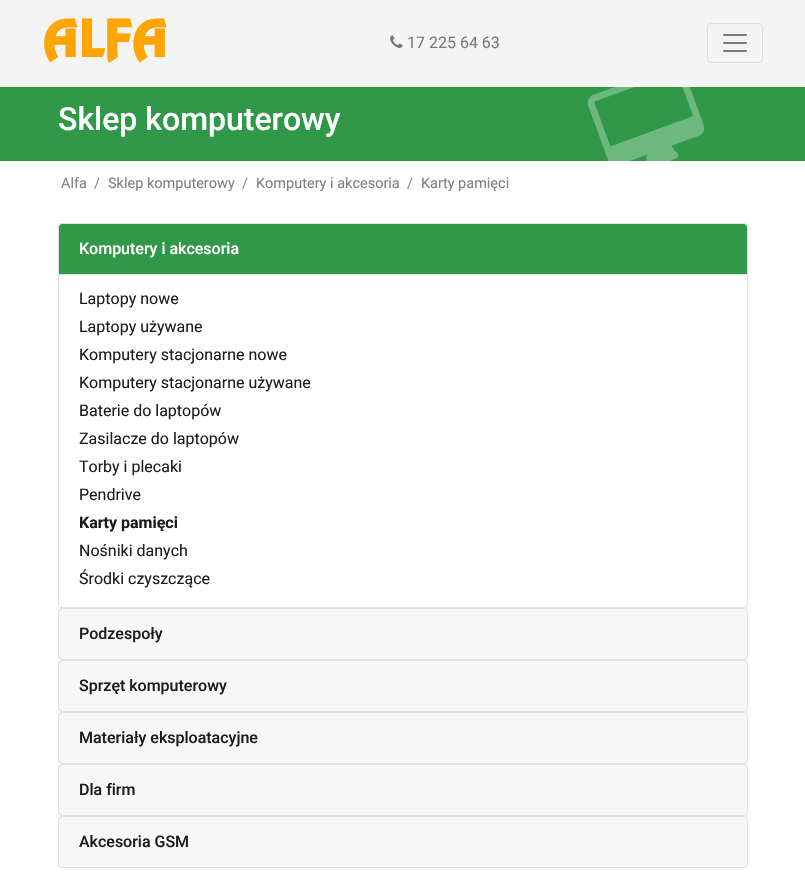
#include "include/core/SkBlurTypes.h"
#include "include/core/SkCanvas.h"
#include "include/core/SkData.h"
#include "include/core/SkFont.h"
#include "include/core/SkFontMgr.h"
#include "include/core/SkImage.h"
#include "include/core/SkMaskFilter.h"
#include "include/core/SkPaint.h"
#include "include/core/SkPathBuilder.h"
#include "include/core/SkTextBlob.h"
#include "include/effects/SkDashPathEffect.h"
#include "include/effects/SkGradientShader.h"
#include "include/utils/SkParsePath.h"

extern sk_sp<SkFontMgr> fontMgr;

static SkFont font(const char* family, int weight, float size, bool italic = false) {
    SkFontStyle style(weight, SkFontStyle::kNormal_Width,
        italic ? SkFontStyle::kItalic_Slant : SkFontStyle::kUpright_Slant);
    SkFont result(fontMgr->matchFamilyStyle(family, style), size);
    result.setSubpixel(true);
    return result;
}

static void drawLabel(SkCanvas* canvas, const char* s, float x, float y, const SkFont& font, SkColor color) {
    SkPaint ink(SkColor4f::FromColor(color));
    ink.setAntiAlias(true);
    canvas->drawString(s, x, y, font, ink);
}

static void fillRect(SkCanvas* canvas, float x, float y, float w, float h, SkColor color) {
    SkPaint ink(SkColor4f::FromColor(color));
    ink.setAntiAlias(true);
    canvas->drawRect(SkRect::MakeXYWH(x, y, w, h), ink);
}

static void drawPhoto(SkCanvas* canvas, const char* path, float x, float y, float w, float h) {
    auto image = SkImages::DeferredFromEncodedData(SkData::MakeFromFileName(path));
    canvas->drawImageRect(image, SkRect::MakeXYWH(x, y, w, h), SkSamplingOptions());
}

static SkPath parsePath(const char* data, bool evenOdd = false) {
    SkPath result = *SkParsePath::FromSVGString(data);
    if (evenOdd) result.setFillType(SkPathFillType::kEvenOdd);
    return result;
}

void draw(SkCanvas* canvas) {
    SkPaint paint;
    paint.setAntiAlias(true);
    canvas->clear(0xFFFFFFFF);
    fillRect(canvas, 0, 0, 805, 87, 0xFFF4F4F4);
    SkFont font1 = font("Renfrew", 400, 47);
    drawLabel(canvas, "ALFA", 43, 57, font1, 0xFFFFA500);
    drawPhoto(canvas, "assets/img1.png", 390, 35, 13, 13);
    SkFont font2 = font("Roboto", 400, 16);
    drawLabel(canvas, "17 225 64 63", 407, 48, font2, 0xFF7A7A7A);
    paint.setStroke(true);
    paint.setStrokeWidth(1);
    paint.setColor(0xFFDCDCDC);
    canvas->drawRoundRect(SkRect::MakeXYWH(707.5f, 23.5f, 55, 39), 3.5f, 3.5f, paint);
    drawPhoto(canvas, "assets/img2.png", 723, 34, 24, 18);
    fillRect(canvas, 0, 87, 805, 74, 0xFF309848);
    SkFont font3 = font("Roboto", 500, 32);
    drawLabel(canvas, "Sklep komputerowy", 58, 130, font3, 0xFFFFFFFF);
    drawPhoto(canvas, "assets/img3.png", 587, 87, 118, 74);
    SkFont font4 = font("Roboto", 400, 14.5f);
    drawLabel(canvas, "Alfa", 61, 188, font4, 0xFF808080);
    drawLabel(canvas, "/", 94, 188, font4, 0xFF868E96);
    drawLabel(canvas, "Sklep komputerowy", 108, 188, font4, 0xFF808080);
    drawLabel(canvas, "/", 242, 188, font4, 0xFF868E96);
    drawLabel(canvas, "Komputery i akcesoria", 256, 188, font4, 0xFF808080);
    drawLabel(canvas, "/", 407, 188, font4, 0xFF868E96);
    drawLabel(canvas, "Karty pamięci", 421, 188, font4, 0xFF808080);
    paint.setColor(0xFFDFDFDF);
    canvas->drawRoundRect(SkRect::MakeXYWH(58.5f, 223.5f, 689, 384), 3.5f, 3.5f, paint);
    paint.setStroke(false);
    paint.setColor(0xFF309848);
    canvas->drawPath(parsePath("M62 224H744C745.5 224 747 225.5 747 227V274H59V227C59 225.5 60.5 224 62 224Z"), paint);
    SkFont font5 = font("Roboto", 500, 16);
    drawLabel(canvas, "Komputery i akcesoria", 79, 254, font5, 0xFFFFFFFF);
    fillRect(canvas, 59, 274, 688, 1, 0xFFDFDFDF);
    drawLabel(canvas, "Laptopy nowe", 79, 304, font2, 0xFF1B1C1D);
    drawLabel(canvas, "Laptopy używane", 79, 332, font2, 0xFF1B1C1D);
    drawLabel(canvas, "Komputery stacjonarne nowe", 79, 360, font2, 0xFF1B1C1D);
    drawLabel(canvas, "Komputery stacjonarne używane", 79, 388, font2, 0xFF1B1C1D);
    drawLabel(canvas, "Baterie do laptopów", 79, 416, font2, 0xFF1B1C1D);
    drawLabel(canvas, "Zasilacze do laptopów", 79, 444, font2, 0xFF1B1C1D);
    drawLabel(canvas, "Torby i plecaki", 79, 472, font2, 0xFF1B1C1D);
    drawLabel(canvas, "Pendrive", 79, 500, font2, 0xFF1B1C1D);
    SkFont font6 = font("Roboto", 700, 16);
    drawLabel(canvas, "Karty pamięci", 79, 528, font6, 0xFF1B1C1D);
    drawLabel(canvas, "Nośniki danych", 79, 556, font2, 0xFF1B1C1D);
    drawLabel(canvas, "Środki czyszczące", 79, 584, font2, 0xFF1B1C1D);
    paint.setStroke(true);
    paint.setColor(0xFFDFDFDF);
    canvas->drawRoundRect(SkRect::MakeXYWH(58.5f, 608.5f, 689, 51), 3.5f, 3.5f, paint);
    fillRect(canvas, 59, 609, 688, 50, 0x08000000);
    drawLabel(canvas, "Podzespoły", 79, 639, font5, 0xFF1B1C1D);
    canvas->drawRoundRect(SkRect::MakeXYWH(58.5f, 660.5f, 689, 51), 3.5f, 3.5f, paint);
    fillRect(canvas, 59, 661, 688, 50, 0x08000000);
    drawLabel(canvas, "Sprzęt komputerowy", 79, 691, font5, 0xFF1B1C1D);
    canvas->drawRoundRect(SkRect::MakeXYWH(58.5f, 712.5f, 689, 51), 3.5f, 3.5f, paint);
    fillRect(canvas, 59, 713, 688, 50, 0x08000000);
    drawLabel(canvas, "Materiały eksploatacyjne", 79, 743, font5, 0xFF1B1C1D);
    canvas->drawRoundRect(SkRect::MakeXYWH(58.5f, 764.5f, 689, 51), 3.5f, 3.5f, paint);
    fillRect(canvas, 59, 765, 688, 50, 0x08000000);
    drawLabel(canvas, "Dla firm", 79, 795, font5, 0xFF1B1C1D);
    canvas->drawRoundRect(SkRect::MakeXYWH(58.5f, 816.5f, 689, 51), 3.5f, 3.5f, paint);
    fillRect(canvas, 59, 817, 688, 50, 0x08000000);
    drawLabel(canvas, "Akcesoria GSM", 79, 847, font5, 0xFF1B1C1D);
}
